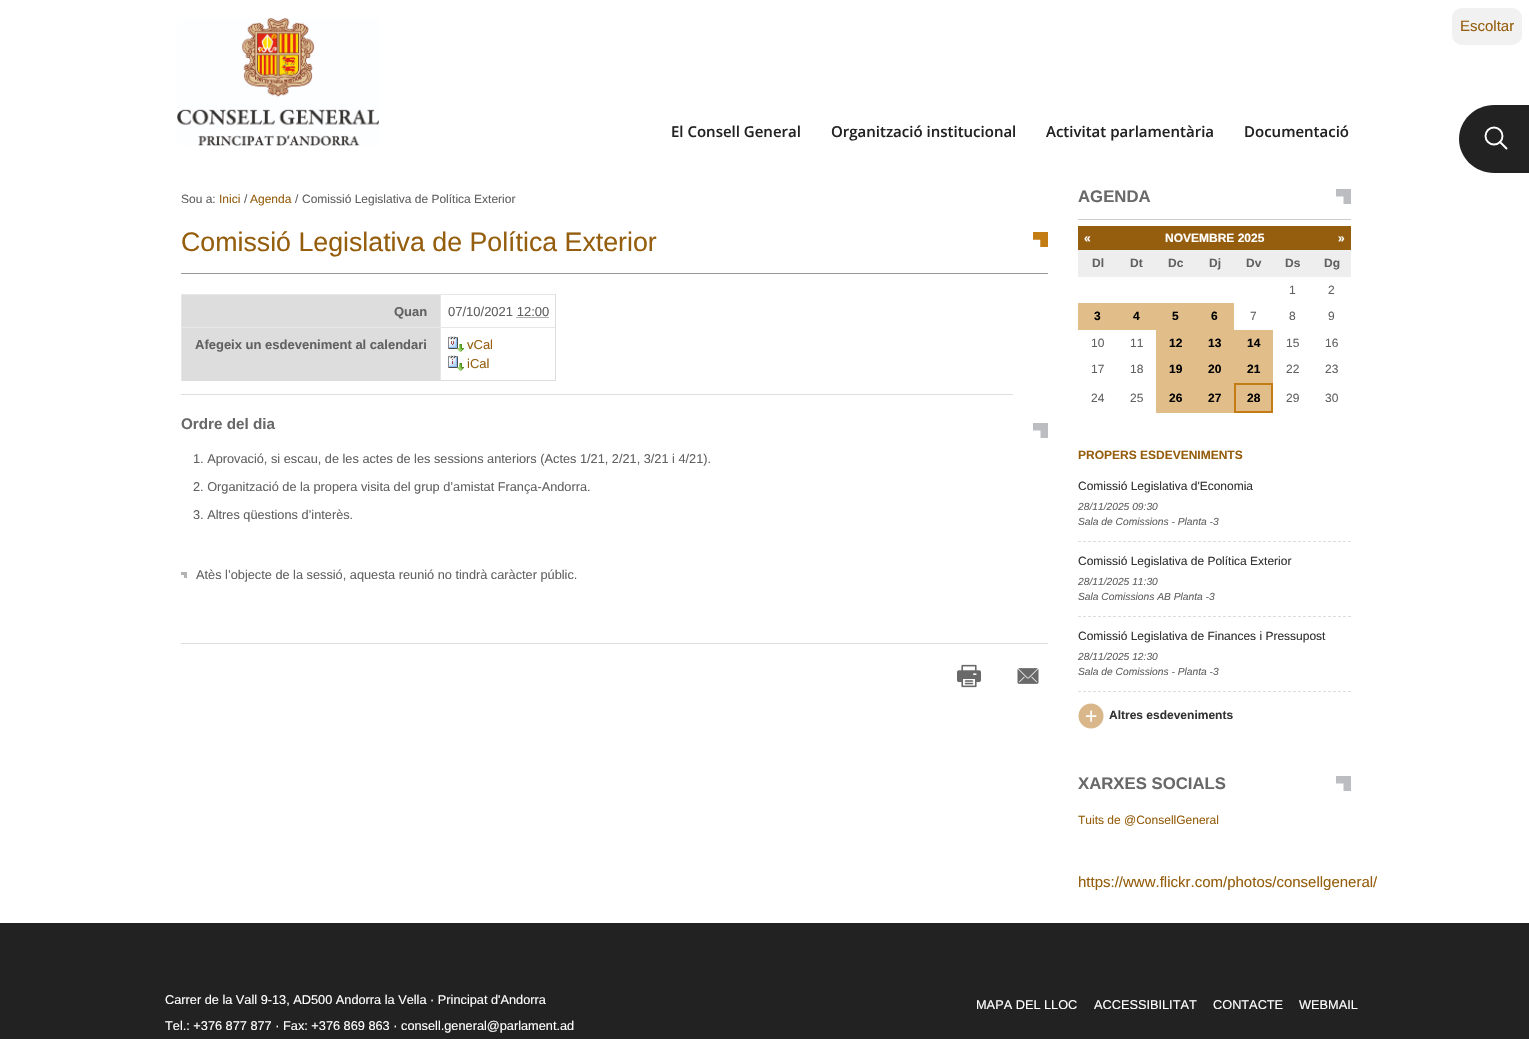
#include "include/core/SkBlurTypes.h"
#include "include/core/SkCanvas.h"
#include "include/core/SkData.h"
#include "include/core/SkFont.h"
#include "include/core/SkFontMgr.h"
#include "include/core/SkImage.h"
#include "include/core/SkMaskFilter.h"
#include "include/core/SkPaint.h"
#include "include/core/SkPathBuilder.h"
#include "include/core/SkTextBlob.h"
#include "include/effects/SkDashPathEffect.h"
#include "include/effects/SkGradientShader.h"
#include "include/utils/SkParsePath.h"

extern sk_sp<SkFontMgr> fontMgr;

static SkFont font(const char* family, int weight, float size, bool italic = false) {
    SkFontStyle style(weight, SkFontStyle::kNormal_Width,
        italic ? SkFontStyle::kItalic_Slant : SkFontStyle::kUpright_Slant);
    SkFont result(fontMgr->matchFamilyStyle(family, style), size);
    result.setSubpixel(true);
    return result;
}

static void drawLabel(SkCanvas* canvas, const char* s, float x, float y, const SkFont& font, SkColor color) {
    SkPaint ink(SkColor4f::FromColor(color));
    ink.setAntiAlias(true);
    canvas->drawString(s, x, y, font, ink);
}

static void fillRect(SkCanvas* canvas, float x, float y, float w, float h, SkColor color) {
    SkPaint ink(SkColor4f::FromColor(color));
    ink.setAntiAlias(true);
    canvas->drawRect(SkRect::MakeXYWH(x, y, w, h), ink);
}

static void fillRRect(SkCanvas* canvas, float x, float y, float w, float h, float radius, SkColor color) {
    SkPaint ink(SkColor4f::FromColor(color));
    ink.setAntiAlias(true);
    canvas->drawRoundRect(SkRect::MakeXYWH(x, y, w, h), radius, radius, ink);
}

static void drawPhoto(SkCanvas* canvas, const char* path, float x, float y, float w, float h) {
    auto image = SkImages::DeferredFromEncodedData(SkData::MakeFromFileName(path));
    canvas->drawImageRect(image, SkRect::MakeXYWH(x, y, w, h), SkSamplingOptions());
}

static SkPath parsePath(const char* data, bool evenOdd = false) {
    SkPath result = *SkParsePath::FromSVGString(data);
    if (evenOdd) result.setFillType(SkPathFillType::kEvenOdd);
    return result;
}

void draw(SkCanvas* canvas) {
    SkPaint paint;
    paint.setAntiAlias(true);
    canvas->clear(0xFFFFFFFF);
    fillRRect(canvas, 1452, 8, 70, 37, 10, 0xFFF1F1F1);
    SkFont font1 = font("Liberation Sans", 400, 15);
    drawLabel(canvas, "Escoltar", 1460, 31, font1, 0xFF955E0E);
    drawPhoto(canvas, "assets/img1.png", 177, 18, 202, 128);
    SkFont font2 = font("Open Sans", 600, 15);
    drawLabel(canvas, "El Consell General", 671, 137, font2, 0xFF222222);
    drawLabel(canvas, "Organització institucional", 831, 137, font2, 0xFF222222);
    drawLabel(canvas, "Activitat parlamentària", 1046, 137, font2, 0xFF222222);
    drawLabel(canvas, "Documentació", 1244, 137, font2, 0xFF222222);
    paint.setColor(0xFF222222);
    canvas->drawPath(parsePath("M1494 105H1529V173H1494C1475 173 1459 158 1459 139C1459 120 1475 105 1494 105Z"), paint);
    paint.setStroke(true);
    paint.setStrokeWidth(1.9f);
    paint.setColor(0xFFFFFFFF);
    canvas->drawCircle(1494, 136, 8.5f, paint);
    paint.setStrokeCap(SkPaint::kRound_Cap);
    paint.setStrokeJoin(SkPaint::kRound_Join);
    canvas->drawPath(parsePath("M1506.5 148.5L1500 142"), paint);
    SkFont font3 = font("Liberation Sans", 400, 12);
    drawLabel(canvas, "Sou a:", 181, 203, font3, 0xFF616161);
    drawLabel(canvas, "Inici", 219, 203, font3, 0xFF955E0E);
    drawLabel(canvas, "/", 244, 203, font3, 0xFF616161);
    drawLabel(canvas, "Agenda", 250, 203, font3, 0xFF955E0E);
    drawLabel(canvas, "/", 295, 203, font3, 0xFF616161);
    drawLabel(canvas, "Comissió Legislativa de Política Exterior", 302, 203, font3, 0xFF616161);
    drawPhoto(canvas, "assets/img2.png", 1033, 232, 15, 15);
    fillRect(canvas, 181, 273, 867, 1, 0xFF999999);
    SkFont font4 = font("Liberation Sans", 400, 26.75f);
    drawLabel(canvas, "Comissió Legislativa de Política Exterior", 181, 251, font4, 0xFF955E0E);
    fillRect(canvas, 181, 394, 832, 1, 0xFFDDDDDD);
    fillRect(canvas, 181, 380, 375, 1, 0xFFDDDDDD);
    fillRect(canvas, 182, 295, 258, 32, 0xFFDDDDDD);
    fillRect(canvas, 181, 294, 375, 1, 0xFFE7E7E7);
    fillRect(canvas, 181, 327, 375, 1, 0xFFE7E7E7);
    fillRect(canvas, 440, 327, 1, 54, 0xFFE7E7E7);
    fillRect(canvas, 440, 294, 1, 34, 0xFFE7E7E7);
    fillRect(canvas, 181, 327, 1, 54, 0xFFE7E7E7);
    fillRect(canvas, 181, 294, 1, 34, 0xFFE7E7E7);
    SkFont font5 = font("Liberation Sans", 700, 13);
    drawLabel(canvas, "Quan", 394, 316, font5, 0xFF616161);
    fillRect(canvas, 555, 327, 1, 54, 0xFFDDDDDD);
    fillRect(canvas, 555, 294, 1, 34, 0xFFDDDDDD);
    SkFont font6 = font("Liberation Sans", 400, 13);
    drawLabel(canvas, "07/10/2021 12:00", 448, 316, font6, 0xFF616161);
    paint.setStrokeWidth(1);
    paint.setStrokeCap(SkPaint::kButt_Cap);
    paint.setStrokeJoin(SkPaint::kMiter_Join);
    paint.setColor(0xFF616161);
    paint.setPathEffect(SkDashPathEffect::Make({{1, 1}}, 0));
    canvas->drawPath(parsePath("M516.5 317.5H549"), paint);
    paint.setPathEffect(nullptr);
    fillRect(canvas, 182, 328, 258, 52, 0xFFDDDDDD);
    drawLabel(canvas, "Afegeix un esdeveniment al calendari", 195, 349, font5, 0xFF616161);
    drawPhoto(canvas, "assets/img3.png", 448, 336, 16, 16);
    drawLabel(canvas, "vCal", 467, 349, font6, 0xFF955E0E);
    drawPhoto(canvas, "assets/img4.png", 448, 355, 16, 16);
    drawLabel(canvas, "iCal", 467, 368, font6, 0xFF955E0E);
    drawPhoto(canvas, "assets/img5.png", 1033, 423, 15, 15);
    SkFont font7 = font("Liberation Sans", 700, 15.25f);
    drawLabel(canvas, "Ordre del dia", 181, 429, font7, 0xFF696969);
    SkFont font8 = font("Liberation Sans", 400, 12.75f);
    drawLabel(canvas, "1. Aprovació, si escau, de les actes de les sessions anteriors (Actes 1/21, 2/21, 3/21 i 4/21).", 193, 463, font8, 0xFF616161);
    drawLabel(canvas, "2. Organització de la propera visita del grup d’amistat França-Andorra.", 193, 491, font8, 0xFF616161);
    drawLabel(canvas, "3. Altres qüestions d’interès.", 193, 519, font8, 0xFF616161);
    drawPhoto(canvas, "assets/img6.png", 181, 572, 6, 6);
    drawLabel(canvas, "Atès l’objecte de la sessió, aquesta reunió no tindrà caràcter públic.", 196, 579, font8, 0xFF616161);
    fillRect(canvas, 181, 643, 867, 1, 0xFFDDDDDD);
    drawPhoto(canvas, "assets/img7.png", 957, 664, 24, 24);
    drawPhoto(canvas, "assets/img8.png", 1017, 668, 22, 16);
    fillRect(canvas, 1078, 219, 273, 1, 0xFFCCCCCC);
    drawPhoto(canvas, "assets/img5.png", 1336, 189, 15, 15);
    SkFont font9 = font("Liberation Sans", 700, 16.75f);
    drawLabel(canvas, "AGENDA", 1078, 202, font9, 0xFF696969);
    fillRect(canvas, 1078, 226, 273, 24, 0xFF955E0E);
    SkFont font10 = font("Liberation Sans", 700, 12);
    drawLabel(canvas, "«", 1084, 242, font10, 0xFFFFFFFF);
    drawLabel(canvas, "NOVEMBRE 2025", 1165, 242, font10, 0xFFFFFFFF);
    drawLabel(canvas, "»", 1338, 242, font10, 0xFFFFFFFF);
    fillRect(canvas, 1078, 250, 273, 27, 0xFFEEEEEE);
    drawLabel(canvas, "Dl", 1092, 267, font10, 0xFF616161);
    drawLabel(canvas, "Dt", 1130, 267, font10, 0xFF616161);
    drawLabel(canvas, "Dc", 1168, 267, font10, 0xFF616161);
    drawLabel(canvas, "Dj", 1209, 267, font10, 0xFF616161);
    drawLabel(canvas, "Dv", 1246, 267, font10, 0xFF616161);
    drawLabel(canvas, "Ds", 1285, 267, font10, 0xFF616161);
    drawLabel(canvas, "Dg", 1324, 267, font10, 0xFF616161);
    drawLabel(canvas, "1", 1289, 294, font3, 0xFF616161);
    drawLabel(canvas, "2", 1328, 294, font3, 0xFF616161);
    fillRect(canvas, 1078, 303, 156, 27, 0xFFE1BD89);
    drawLabel(canvas, "3", 1094, 320, font10, 0xFF000000);
    drawLabel(canvas, "4", 1133, 320, font10, 0xFF000000);
    drawLabel(canvas, "5", 1172, 320, font10, 0xFF000000);
    drawLabel(canvas, "6", 1211, 320, font10, 0xFF000000);
    drawLabel(canvas, "7", 1250, 320, font3, 0xFF616161);
    drawLabel(canvas, "8", 1289, 320, font3, 0xFF616161);
    drawLabel(canvas, "9", 1328, 320, font3, 0xFF616161);
    drawLabel(canvas, "10", 1091, 347, font3, 0xFF616161);
    drawLabel(canvas, "11", 1130, 347, font3, 0xFF616161);
    fillRect(canvas, 1156, 330, 117, 26, 0xFFE1BD89);
    drawLabel(canvas, "12", 1169, 347, font10, 0xFF000000);
    drawLabel(canvas, "13", 1208, 347, font10, 0xFF000000);
    drawLabel(canvas, "14", 1247, 347, font10, 0xFF000000);
    drawLabel(canvas, "15", 1286, 347, font3, 0xFF616161);
    drawLabel(canvas, "16", 1325, 347, font3, 0xFF616161);
    drawLabel(canvas, "17", 1091, 373, font3, 0xFF616161);
    drawLabel(canvas, "18", 1130, 373, font3, 0xFF616161);
    fillRect(canvas, 1156, 356, 117, 27, 0xFFE1BD89);
    drawLabel(canvas, "19", 1169, 373, font10, 0xFF000000);
    drawLabel(canvas, "20", 1208, 373, font10, 0xFF000000);
    drawLabel(canvas, "21", 1247, 373, font10, 0xFF000000);
    drawLabel(canvas, "22", 1286, 373, font3, 0xFF616161);
    drawLabel(canvas, "23", 1325, 373, font3, 0xFF616161);
    drawLabel(canvas, "24", 1091, 402, font3, 0xFF616161);
    drawLabel(canvas, "25", 1130, 402, font3, 0xFF616161);
    fillRect(canvas, 1156, 383, 78, 30, 0xFFE1BD89);
    drawLabel(canvas, "26", 1169, 402, font10, 0xFF000000);
    drawLabel(canvas, "27", 1208, 402, font10, 0xFF000000);
    paint.setStroke(false);
    paint.setColor(0xFFE1BD89);
    canvas->drawRect(SkRect::MakeXYWH(1235, 384, 37, 28), paint);
    paint.setStroke(true);
    paint.setStrokeWidth(2);
    paint.setColor(0xFFC37C13);
    canvas->drawRect(SkRect::MakeXYWH(1235, 384, 37, 28), paint);
    drawLabel(canvas, "28", 1247, 402, font10, 0xFF000000);
    drawLabel(canvas, "29", 1286, 402, font3, 0xFF616161);
    drawLabel(canvas, "30", 1325, 402, font3, 0xFF616161);
    drawLabel(canvas, "PROPERS ESDEVENIMENTS", 1078, 459, font10, 0xFF955E0E);
    paint.setStrokeWidth(1);
    paint.setColor(0xFFDDDDDD);
    paint.setPathEffect(SkDashPathEffect::Make({{3, 2}}, 0));
    canvas->drawPath(parsePath("M1078 541.5H1351"), paint);
    paint.setPathEffect(nullptr);
    drawLabel(canvas, "Comissió Legislativa d'Economia", 1078, 490, font3, 0xFF333333);
    SkFont font11 = font("Liberation Sans", 400, 10.25f, true);
    drawLabel(canvas, "28/11/2025 09:30", 1078, 510, font11, 0xFF616161);
    drawLabel(canvas, "Sala de Comissions - Planta -3", 1078, 525, font11, 0xFF616161);
    paint.setPathEffect(SkDashPathEffect::Make({{3, 2}}, 0));
    canvas->drawPath(parsePath("M1078 616.5H1351"), paint);
    paint.setPathEffect(nullptr);
    drawLabel(canvas, "Comissió Legislativa de Política Exterior", 1078, 565, font3, 0xFF333333);
    drawLabel(canvas, "28/11/2025 11:30", 1078, 585, font11, 0xFF616161);
    drawLabel(canvas, "Sala Comissions AB Planta -3", 1078, 600, font11, 0xFF616161);
    paint.setPathEffect(SkDashPathEffect::Make({{3, 2}}, 0));
    canvas->drawPath(parsePath("M1078 691.5H1351"), paint);
    paint.setPathEffect(nullptr);
    drawLabel(canvas, "Comissió Legislativa de Finances i Pressupost", 1078, 640, font3, 0xFF333333);
    drawLabel(canvas, "28/11/2025 12:30", 1078, 660, font11, 0xFF616161);
    drawLabel(canvas, "Sala de Comissions - Planta -3", 1078, 675, font11, 0xFF616161);
    drawPhoto(canvas, "assets/img9.png", 1078, 703, 26, 26);
    drawLabel(canvas, "Altres esdeveniments", 1109, 719, font10, 0xFF333333);
    drawPhoto(canvas, "assets/img5.png", 1336, 776, 15, 15);
    drawLabel(canvas, "XARXES SOCIALS", 1078, 789, font9, 0xFF696969);
    drawLabel(canvas, "Tuits de @ConsellGeneral", 1078, 824, font3, 0xFF955E0E);
    drawLabel(canvas, "https://www.flickr.com/photos/consellgeneral/", 1078, 887, font1, 0xFF955E0E);
    fillRect(canvas, 0, 923, 1529, 116, 0xFF222222);
    drawLabel(canvas, "Carrer de la Vall 9-13, AD500 Andorra la Vella · Principat d'Andorra", 165, 1004, font8, 0xFFFFFFFF);
    drawLabel(canvas, "Tel.: +376 877 877 · Fax: +376 869 863 · consell.general@parlament.ad", 165, 1030, font8, 0xFFFFFFFF);
    drawLabel(canvas, "MAPA DEL LLOC", 976, 1009, font8, 0xFFFFFFFF);
    drawLabel(canvas, "ACCESSIBILITAT", 1094, 1009, font8, 0xFFFFFFFF);
    drawLabel(canvas, "CONTACTE", 1213, 1009, font8, 0xFFFFFFFF);
    drawLabel(canvas, "WEBMAIL", 1299, 1009, font8, 0xFFFFFFFF);
}
